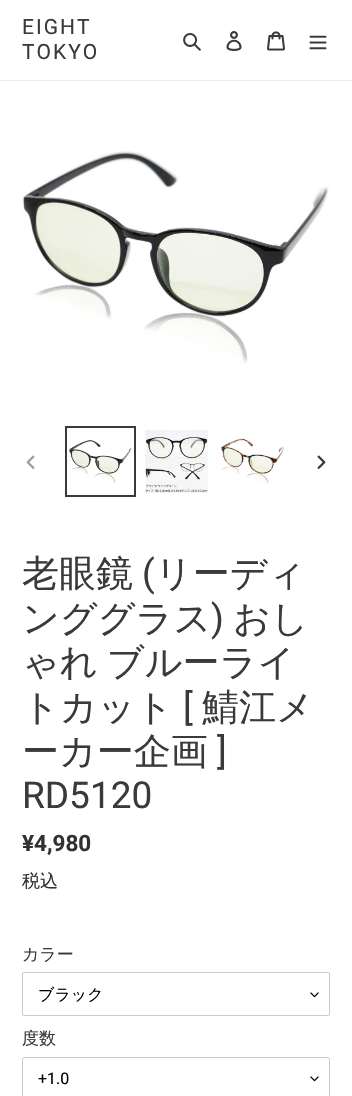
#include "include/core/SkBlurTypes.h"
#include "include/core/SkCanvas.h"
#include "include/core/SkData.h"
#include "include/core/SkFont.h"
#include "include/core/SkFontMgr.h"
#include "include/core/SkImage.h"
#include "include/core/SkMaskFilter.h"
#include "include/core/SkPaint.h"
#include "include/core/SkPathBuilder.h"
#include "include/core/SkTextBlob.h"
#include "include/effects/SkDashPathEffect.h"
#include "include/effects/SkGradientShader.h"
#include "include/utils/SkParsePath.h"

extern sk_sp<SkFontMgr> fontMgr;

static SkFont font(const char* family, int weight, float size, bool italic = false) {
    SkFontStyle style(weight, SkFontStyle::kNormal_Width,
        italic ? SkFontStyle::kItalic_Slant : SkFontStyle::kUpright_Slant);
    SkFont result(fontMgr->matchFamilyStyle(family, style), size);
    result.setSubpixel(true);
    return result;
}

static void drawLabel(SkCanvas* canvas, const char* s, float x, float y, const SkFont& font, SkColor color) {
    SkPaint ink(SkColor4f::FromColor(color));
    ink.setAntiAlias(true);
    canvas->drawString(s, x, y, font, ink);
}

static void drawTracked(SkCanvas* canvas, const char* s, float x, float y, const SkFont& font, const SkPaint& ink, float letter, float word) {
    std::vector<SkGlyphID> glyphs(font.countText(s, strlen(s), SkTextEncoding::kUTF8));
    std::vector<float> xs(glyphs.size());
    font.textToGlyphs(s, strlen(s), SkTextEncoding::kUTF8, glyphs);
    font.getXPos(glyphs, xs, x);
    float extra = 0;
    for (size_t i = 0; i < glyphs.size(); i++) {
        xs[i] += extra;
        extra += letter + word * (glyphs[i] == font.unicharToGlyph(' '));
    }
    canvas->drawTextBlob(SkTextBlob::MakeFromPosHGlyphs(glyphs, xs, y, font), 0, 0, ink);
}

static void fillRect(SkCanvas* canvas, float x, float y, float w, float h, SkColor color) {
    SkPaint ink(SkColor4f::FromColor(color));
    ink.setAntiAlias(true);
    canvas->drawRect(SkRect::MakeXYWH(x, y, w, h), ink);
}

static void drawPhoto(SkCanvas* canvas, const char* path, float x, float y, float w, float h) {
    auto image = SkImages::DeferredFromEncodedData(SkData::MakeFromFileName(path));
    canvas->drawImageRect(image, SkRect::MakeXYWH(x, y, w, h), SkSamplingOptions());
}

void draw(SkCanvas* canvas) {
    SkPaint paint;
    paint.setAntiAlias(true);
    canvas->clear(0xFFFFFFFF);
    fillRect(canvas, 0, 80, 352, 1, 0xFFEBEBEB);
    SkFont font1 = font("Roboto", 400, 21);
    paint.setColor(0xFF3A3A3A);
    drawTracked(canvas, "EIGHT", 22, 34, font1, paint, 2, 0);
    drawTracked(canvas, "TOKYO", 22, 59, font1, paint, 2, 0);
    drawPhoto(canvas, "assets/img1.png", 183, 33, 18, 18);
    drawPhoto(canvas, "assets/img2.png", 226, 31, 16, 20);
    drawPhoto(canvas, "assets/img3.png", 267, 31, 18, 20);
    drawPhoto(canvas, "assets/img4.png", 309, 35, 18, 15);
    drawPhoto(canvas, "assets/img5.png", 22, 151, 307, 212);
    drawPhoto(canvas, "assets/img6.png", 26, 455, 9, 14);
    paint.setStroke(true);
    paint.setStrokeWidth(2);
    canvas->drawRect(SkRect::MakeXYWH(66, 427, 69, 69), paint);
    drawPhoto(canvas, "assets/img7.png", 69, 440, 63, 43);
    drawPhoto(canvas, "assets/img8.png", 145, 430, 63, 63);
    drawPhoto(canvas, "assets/img9.png", 221, 438, 63, 46);
    drawPhoto(canvas, "assets/img10.png", 317, 455, 9, 14);
    SkFont font2 = font("WenQuanYi Zen Hei", 500, 37);
    drawLabel(canvas, "老眼鏡", 22, 586, font2, 0xFF3A3A3A);
    SkFont font3 = font("Roboto", 400, 37);
    drawLabel(canvas, "(", 142, 586, font3, 0xFF3A3A3A);
    drawLabel(canvas, "リーディ", 155, 586, font2, 0xFF3A3A3A);
    drawLabel(canvas, "ンググラス", 22, 631, font2, 0xFF3A3A3A);
    drawLabel(canvas, ")", 211, 631, font3, 0xFF3A3A3A);
    drawLabel(canvas, "おし", 233, 631, font2, 0xFF3A3A3A);
    paint.setStroke(false);
    drawTracked(canvas, "ゃれ ブルーライ", 22, 675, font2, paint, 0, -2);
    drawLabel(canvas, "トカット", 22, 720, font2, 0xFF3A3A3A);
    drawLabel(canvas, "[", 183, 720, font3, 0xFF3A3A3A);
    drawLabel(canvas, "鯖江メ", 202, 720, font2, 0xFF3A3A3A);
    drawLabel(canvas, "ーカー企画", 22, 764, font2, 0xFF3A3A3A);
    drawLabel(canvas, "]", 217, 764, font3, 0xFF3A3A3A);
    drawLabel(canvas, "RD5120", 22, 808, font3, 0xFF3A3A3A);
    SkFont font4 = font("Roboto", 700, 22.5f);
    drawLabel(canvas, "¥4,980", 22, 851, font4, 0xFF333232);
    SkFont font5 = font("WenQuanYi Zen Hei", 500, 18);
    drawLabel(canvas, "税込", 22, 887, font5, 0xFF333232);
    SkFont font6 = font("WenQuanYi Zen Hei", 500, 17);
    drawLabel(canvas, "カラー", 22, 960, font6, 0xFF3A3A3A);
    drawPhoto(canvas, "assets/img11.png", 310, 992, 9, 6);
    paint.setStroke(true);
    paint.setStrokeWidth(1);
    paint.setColor(0xFFCCCCCC);
    canvas->drawRoundRect(SkRect::MakeXYWH(22.5f, 972.5f, 307, 43), 1.5f, 1.5f, paint);
    SkFont font7 = font("WenQuanYi Zen Hei", 500, 16);
    drawLabel(canvas, "ブラック", 38, 1000, font7, 0xFF000000);
    drawLabel(canvas, "度数", 22, 1044, font6, 0xFF3A3A3A);
    drawPhoto(canvas, "assets/img11.png", 310, 1076, 9, 6);
    canvas->drawRoundRect(SkRect::MakeXYWH(22.5f, 1057.5f, 307, 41), 1.5f, 1.5f, paint);
    SkFont font8 = font("Roboto", 400, 16);
    drawLabel(canvas, "+1.0", 38, 1084, font8, 0xFF000000);
}
